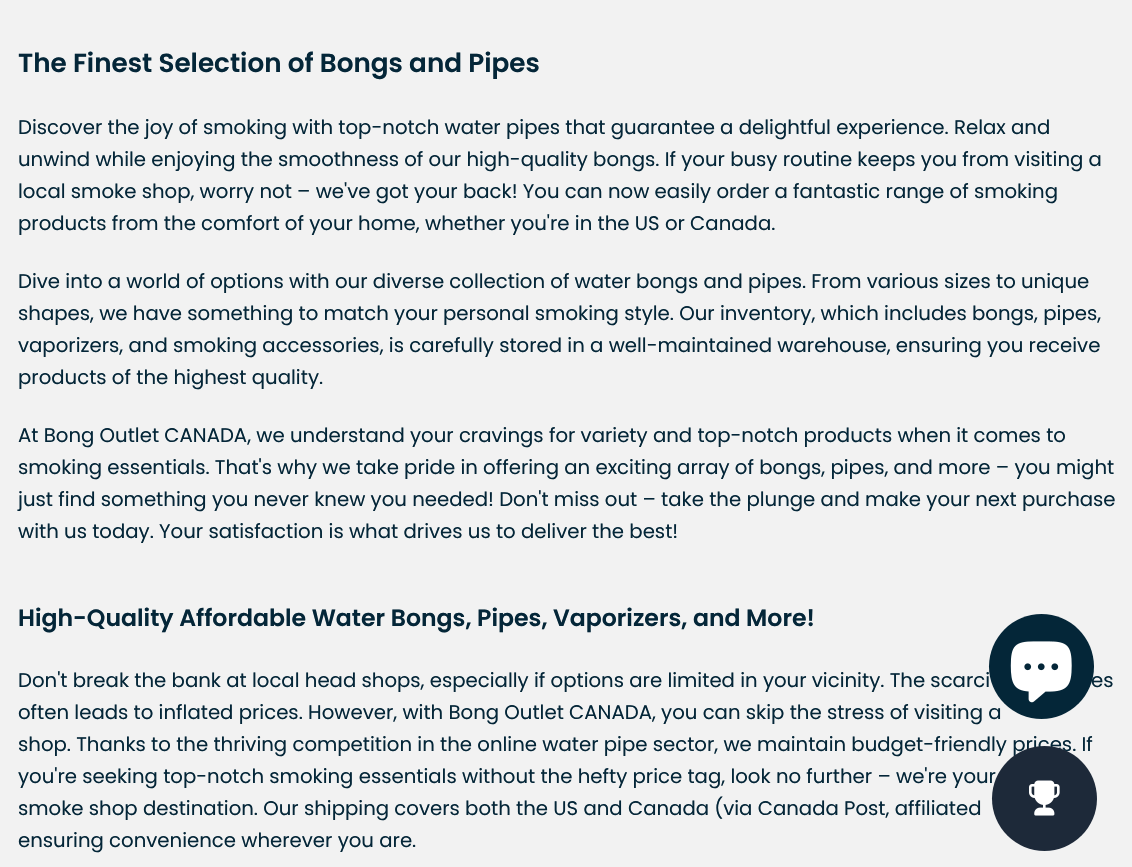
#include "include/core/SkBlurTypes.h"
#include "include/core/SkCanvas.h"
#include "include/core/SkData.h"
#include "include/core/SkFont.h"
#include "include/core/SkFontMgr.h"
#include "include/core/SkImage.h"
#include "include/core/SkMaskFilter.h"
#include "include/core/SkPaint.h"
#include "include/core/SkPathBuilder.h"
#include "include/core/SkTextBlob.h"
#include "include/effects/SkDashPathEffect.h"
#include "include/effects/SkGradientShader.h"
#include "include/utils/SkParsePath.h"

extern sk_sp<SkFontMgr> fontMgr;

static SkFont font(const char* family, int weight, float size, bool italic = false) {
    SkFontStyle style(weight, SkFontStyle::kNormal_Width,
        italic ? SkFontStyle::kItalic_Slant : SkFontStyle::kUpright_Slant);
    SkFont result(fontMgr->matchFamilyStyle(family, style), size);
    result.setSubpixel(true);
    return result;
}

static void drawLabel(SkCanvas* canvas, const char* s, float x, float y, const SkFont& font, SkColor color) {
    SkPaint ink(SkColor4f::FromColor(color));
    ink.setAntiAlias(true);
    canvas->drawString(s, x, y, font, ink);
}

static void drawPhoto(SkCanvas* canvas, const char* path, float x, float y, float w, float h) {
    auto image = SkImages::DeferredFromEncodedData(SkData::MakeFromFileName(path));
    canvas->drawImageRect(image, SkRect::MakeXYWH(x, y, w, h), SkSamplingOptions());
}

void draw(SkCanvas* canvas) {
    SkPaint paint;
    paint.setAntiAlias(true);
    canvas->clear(0xFFF2F2F2);
    SkFont font1 = font("Poppins", 600, 26.25f);
    drawLabel(canvas, "The Finest Selection of Bongs and Pipes", 18, 72, font1, 0xFF042638);
    SkFont font2 = font("Poppins", 400, 19.7f);
    drawLabel(canvas, "Discover the joy of smoking with top-notch water pipes that guarantee a delightful experience. Relax and", 18, 134, font2, 0xFF042638);
    drawLabel(canvas, "unwind while enjoying the smoothness of our high-quality bongs. If your busy routine keeps you from visiting a", 18, 166, font2, 0xFF042638);
    drawLabel(canvas, "local smoke shop, worry not – we've got your back! You can now easily order a fantastic range of smoking", 18, 198, font2, 0xFF042638);
    drawLabel(canvas, "products from the comfort of your home, whether you're in the US or Canada.", 18, 230, font2, 0xFF042638);
    drawLabel(canvas, "Dive into a world of options with our diverse collection of water bongs and pipes. From various sizes to unique", 18, 288, font2, 0xFF042638);
    drawLabel(canvas, "shapes, we have something to match your personal smoking style. Our inventory, which includes bongs, pipes,", 18, 320, font2, 0xFF042638);
    drawLabel(canvas, "vaporizers, and smoking accessories, is carefully stored in a well-maintained warehouse, ensuring you receive", 18, 352, font2, 0xFF042638);
    drawLabel(canvas, "products of the highest quality.", 18, 384, font2, 0xFF042638);
    drawLabel(canvas, "At Bong Outlet CANADA, we understand your cravings for variety and top-notch products when it comes to", 18, 442, font2, 0xFF042638);
    drawLabel(canvas, "smoking essentials. That's why we take pride in offering an exciting array of bongs, pipes, and more – you might", 18, 474, font2, 0xFF042638);
    drawLabel(canvas, "just find something you never knew you needed! Don't miss out – take the plunge and make your next purchase", 18, 506, font2, 0xFF042638);
    drawLabel(canvas, "with us today. Your satisfaction is what drives us to deliver the best!", 18, 538, font2, 0xFF042638);
    SkFont font3 = font("Poppins", 600, 23.6f);
    drawLabel(canvas, "High-Quality Affordable Water Bongs, Pipes, Vaporizers, and More!", 18, 626, font3, 0xFF042638);
    drawLabel(canvas, "Don't break the bank at local head shops, especially if options are limited in your vicinity. The scarci", 18, 687, font2, 0xFF042638);
    drawLabel(canvas, "es", 1091, 687, font2, 0xFF042638);
    drawLabel(canvas, "often leads to inflated prices. However, with Bong Outlet CANADA, you can skip the stress of visiting a", 18, 719, font2, 0xFF042638);
    drawLabel(canvas, "shop. Thanks to the thriving competition in the online water pipe sector, we maintain budget-friendly prices. If", 18, 751, font2, 0xFF042638);
    drawLabel(canvas, "you're seeking top-notch smoking essentials without the hefty price tag, look no further – we're your", 18, 783, font2, 0xFF042638);
    drawLabel(canvas, "smoke shop destination. Our shipping covers both the US and Canada (via Canada Post, affiliated", 18, 815, font2, 0xFF042638);
    drawLabel(canvas, "ensuring convenience wherever you are.", 18, 847, font2, 0xFF042638);
    paint.setColor(0xFF042638);
    canvas->drawCircle(1041.5f, 666.5f, 52.5f, paint);
    drawPhoto(canvas, "assets/img1.png", 1010, 641, 62, 62);
    paint.setColor(0xFF1D2939);
    canvas->drawCircle(1044.5f, 798.5f, 52.5f, paint);
    drawPhoto(canvas, "assets/img2.png", 1029, 780, 31, 36);
}
